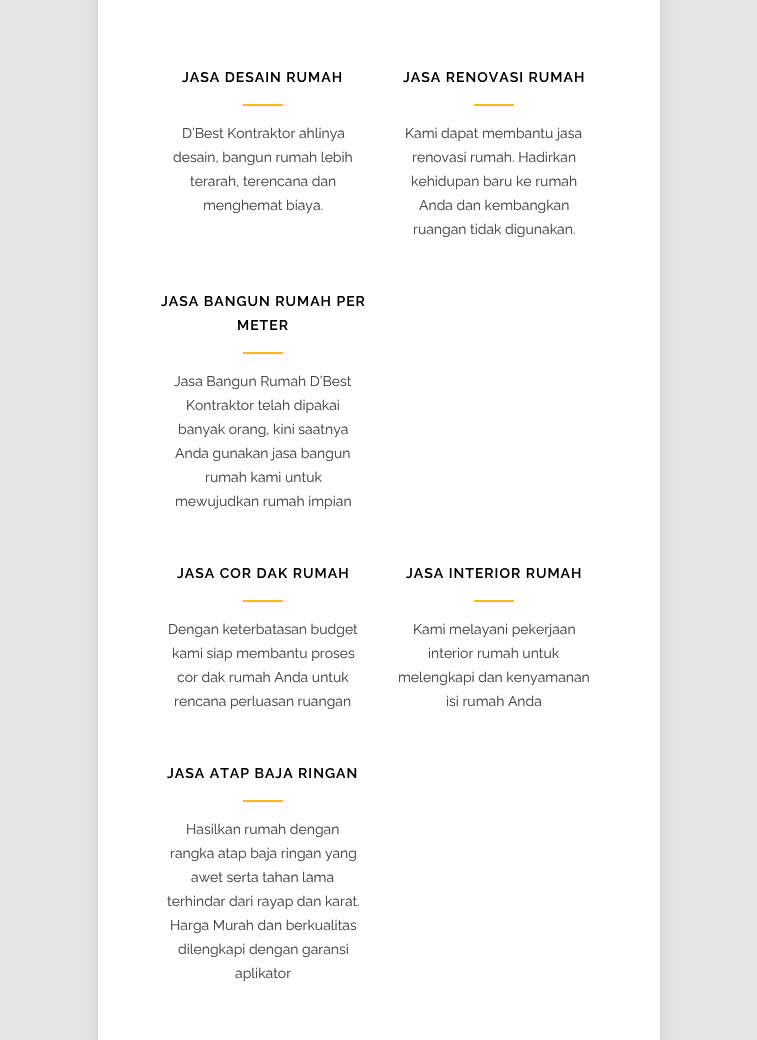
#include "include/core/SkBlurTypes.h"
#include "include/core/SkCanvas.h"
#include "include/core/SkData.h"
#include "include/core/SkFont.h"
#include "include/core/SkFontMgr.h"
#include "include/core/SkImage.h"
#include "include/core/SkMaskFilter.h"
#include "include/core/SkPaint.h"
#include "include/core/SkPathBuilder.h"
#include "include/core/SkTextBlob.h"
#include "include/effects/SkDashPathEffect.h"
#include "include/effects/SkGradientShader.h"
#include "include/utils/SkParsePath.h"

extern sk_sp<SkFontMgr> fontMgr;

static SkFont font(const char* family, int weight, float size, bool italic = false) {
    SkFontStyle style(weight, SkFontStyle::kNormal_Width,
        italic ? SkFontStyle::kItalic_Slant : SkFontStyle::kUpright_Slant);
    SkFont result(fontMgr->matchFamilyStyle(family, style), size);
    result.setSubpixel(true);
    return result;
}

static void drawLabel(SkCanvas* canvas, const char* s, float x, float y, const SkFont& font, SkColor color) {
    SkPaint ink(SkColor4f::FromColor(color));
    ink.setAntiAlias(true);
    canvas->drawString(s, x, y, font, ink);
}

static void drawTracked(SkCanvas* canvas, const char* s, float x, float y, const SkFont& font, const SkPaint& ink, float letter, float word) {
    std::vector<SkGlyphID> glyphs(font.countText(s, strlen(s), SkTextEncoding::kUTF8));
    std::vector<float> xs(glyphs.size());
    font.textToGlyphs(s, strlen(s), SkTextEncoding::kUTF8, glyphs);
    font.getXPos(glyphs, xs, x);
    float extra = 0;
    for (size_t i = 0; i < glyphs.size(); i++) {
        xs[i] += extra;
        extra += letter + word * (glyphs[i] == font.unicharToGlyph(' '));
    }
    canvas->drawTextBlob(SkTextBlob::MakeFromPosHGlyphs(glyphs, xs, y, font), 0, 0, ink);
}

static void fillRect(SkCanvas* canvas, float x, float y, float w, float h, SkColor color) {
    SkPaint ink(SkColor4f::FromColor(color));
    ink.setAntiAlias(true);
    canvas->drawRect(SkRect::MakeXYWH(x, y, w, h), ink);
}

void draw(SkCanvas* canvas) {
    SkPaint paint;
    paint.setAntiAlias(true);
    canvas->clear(0xFFE5E5E5);
    paint.setColor(0x1A000000);
    paint.setMaskFilter(SkMaskFilter::MakeBlur(kNormal_SkBlurStyle, 7.5f));
    canvas->drawRect(SkRect::MakeXYWH(98, -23, 562, 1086), paint);
    paint.setMaskFilter(nullptr);
    fillRect(canvas, 98, 0, 562, 1040, 0xFFFFFFFF);
    SkFont font1 = font("Raleway", 600, 14);
    paint.setColor(0xFF000000);
    drawTracked(canvas, "JASA DESAIN RUMAH", 182, 82, font1, paint, 1, 0);
    fillRect(canvas, 243, 104, 40, 2, 0xFFF4BC16);
    SkFont font2 = font("Raleway", 400, 14);
    drawLabel(canvas, "D’Best Kontraktor ahlinya", 182, 138, font2, 0xFF444444);
    drawLabel(canvas, "desain, bangun rumah lebih", 173, 162, font2, 0xFF444444);
    drawLabel(canvas, "terarah, terencana dan", 190, 186, font2, 0xFF444444);
    drawLabel(canvas, "menghemat biaya.", 203, 210, font2, 0xFF444444);
    drawTracked(canvas, "JASA RENOVASI RUMAH", 403, 82, font1, paint, 1, 0);
    fillRect(canvas, 474, 104, 40, 2, 0xFFF4BC16);
    drawLabel(canvas, "Kami dapat membantu jasa", 405, 138, font2, 0xFF444444);
    drawLabel(canvas, "renovasi rumah. Hadirkan", 412, 162, font2, 0xFF444444);
    drawLabel(canvas, "kehidupan baru ke rumah", 411, 186, font2, 0xFF444444);
    drawLabel(canvas, "Anda dan kembangkan", 419, 210, font2, 0xFF444444);
    drawLabel(canvas, "ruangan tidak digunakan.", 413, 234, font2, 0xFF444444);
    drawTracked(canvas, "JASA BANGUN RUMAH PER", 161, 306, font1, paint, 1, 0);
    drawTracked(canvas, "METER", 237, 330, font1, paint, 1, 0);
    fillRect(canvas, 243, 352, 40, 2, 0xFFF4BC16);
    drawLabel(canvas, "Jasa Bangun Rumah D’Best", 174, 386, font2, 0xFF444444);
    drawLabel(canvas, "Kontraktor telah dipakai", 186, 410, font2, 0xFF444444);
    drawLabel(canvas, "banyak orang, kini saatnya", 178, 434, font2, 0xFF444444);
    drawLabel(canvas, "Anda gunakan jasa bangun", 175, 458, font2, 0xFF444444);
    drawLabel(canvas, "rumah kami untuk", 205, 482, font2, 0xFF444444);
    drawLabel(canvas, "mewujudkan rumah impian", 175, 506, font2, 0xFF444444);
    drawTracked(canvas, "JASA COR DAK RUMAH", 177, 578, font1, paint, 1, 0);
    fillRect(canvas, 243, 600, 40, 2, 0xFFF4BC16);
    drawLabel(canvas, "Dengan keterbatasan budget", 168, 634, font2, 0xFF444444);
    drawLabel(canvas, "kami siap membantu proses", 172, 658, font2, 0xFF444444);
    drawLabel(canvas, "cor dak rumah Anda untuk", 177, 682, font2, 0xFF444444);
    drawLabel(canvas, "rencana perluasan ruangan", 174, 706, font2, 0xFF444444);
    drawTracked(canvas, "JASA INTERIOR RUMAH", 406, 578, font1, paint, 1, 0);
    fillRect(canvas, 474, 600, 40, 2, 0xFFF4BC16);
    drawLabel(canvas, "Kami melayani pekerjaan", 413, 634, font2, 0xFF444444);
    drawLabel(canvas, "interior rumah untuk", 428, 658, font2, 0xFF444444);
    drawLabel(canvas, "melengkapi dan kenyamanan", 398, 682, font2, 0xFF444444);
    drawLabel(canvas, "isi rumah Anda", 446, 706, font2, 0xFF444444);
    drawTracked(canvas, "JASA ATAP BAJA RINGAN", 167, 778, font1, paint, 1, 0);
    fillRect(canvas, 243, 800, 40, 2, 0xFFF4BC16);
    drawLabel(canvas, "Hasilkan rumah dengan", 186, 834, font2, 0xFF444444);
    drawLabel(canvas, "rangka atap baja ringan yang", 170, 858, font2, 0xFF444444);
    drawLabel(canvas, "awet serta tahan lama", 191, 882, font2, 0xFF444444);
    drawLabel(canvas, "terhindar dari rayap dan karat.", 167, 906, font2, 0xFF444444);
    drawLabel(canvas, "Harga Murah dan berkualitas", 170, 930, font2, 0xFF444444);
    drawLabel(canvas, "dilengkapi dengan garansi", 178, 954, font2, 0xFF444444);
    drawLabel(canvas, "aplikator", 235, 978, font2, 0xFF444444);
}
